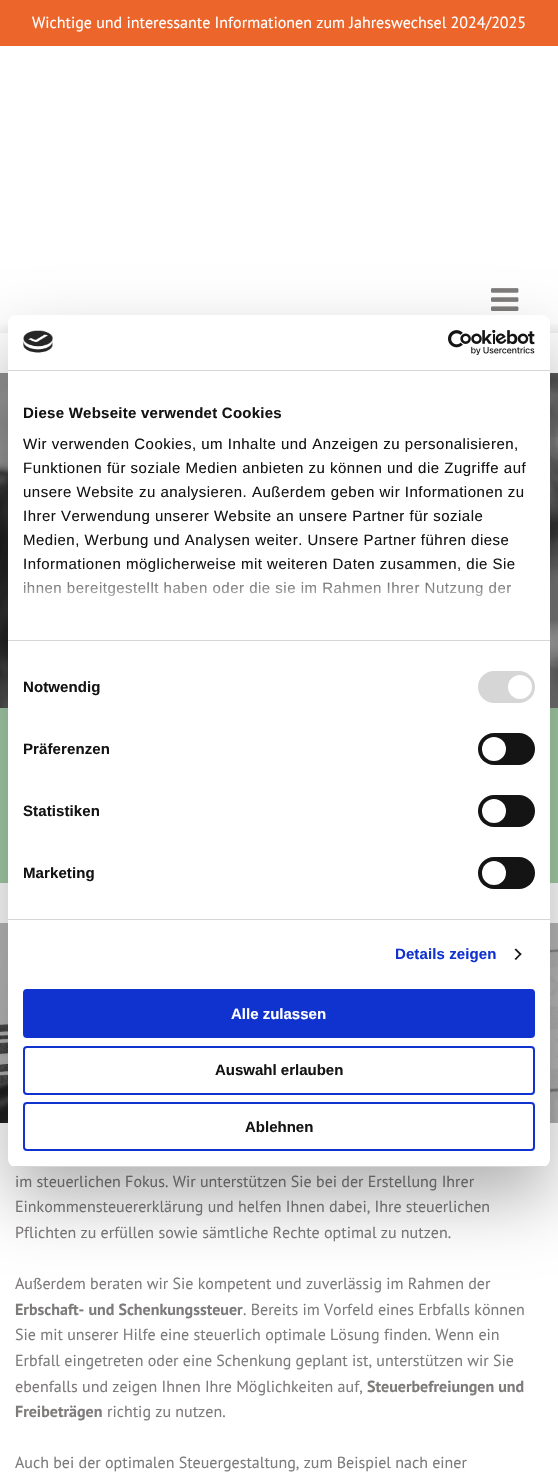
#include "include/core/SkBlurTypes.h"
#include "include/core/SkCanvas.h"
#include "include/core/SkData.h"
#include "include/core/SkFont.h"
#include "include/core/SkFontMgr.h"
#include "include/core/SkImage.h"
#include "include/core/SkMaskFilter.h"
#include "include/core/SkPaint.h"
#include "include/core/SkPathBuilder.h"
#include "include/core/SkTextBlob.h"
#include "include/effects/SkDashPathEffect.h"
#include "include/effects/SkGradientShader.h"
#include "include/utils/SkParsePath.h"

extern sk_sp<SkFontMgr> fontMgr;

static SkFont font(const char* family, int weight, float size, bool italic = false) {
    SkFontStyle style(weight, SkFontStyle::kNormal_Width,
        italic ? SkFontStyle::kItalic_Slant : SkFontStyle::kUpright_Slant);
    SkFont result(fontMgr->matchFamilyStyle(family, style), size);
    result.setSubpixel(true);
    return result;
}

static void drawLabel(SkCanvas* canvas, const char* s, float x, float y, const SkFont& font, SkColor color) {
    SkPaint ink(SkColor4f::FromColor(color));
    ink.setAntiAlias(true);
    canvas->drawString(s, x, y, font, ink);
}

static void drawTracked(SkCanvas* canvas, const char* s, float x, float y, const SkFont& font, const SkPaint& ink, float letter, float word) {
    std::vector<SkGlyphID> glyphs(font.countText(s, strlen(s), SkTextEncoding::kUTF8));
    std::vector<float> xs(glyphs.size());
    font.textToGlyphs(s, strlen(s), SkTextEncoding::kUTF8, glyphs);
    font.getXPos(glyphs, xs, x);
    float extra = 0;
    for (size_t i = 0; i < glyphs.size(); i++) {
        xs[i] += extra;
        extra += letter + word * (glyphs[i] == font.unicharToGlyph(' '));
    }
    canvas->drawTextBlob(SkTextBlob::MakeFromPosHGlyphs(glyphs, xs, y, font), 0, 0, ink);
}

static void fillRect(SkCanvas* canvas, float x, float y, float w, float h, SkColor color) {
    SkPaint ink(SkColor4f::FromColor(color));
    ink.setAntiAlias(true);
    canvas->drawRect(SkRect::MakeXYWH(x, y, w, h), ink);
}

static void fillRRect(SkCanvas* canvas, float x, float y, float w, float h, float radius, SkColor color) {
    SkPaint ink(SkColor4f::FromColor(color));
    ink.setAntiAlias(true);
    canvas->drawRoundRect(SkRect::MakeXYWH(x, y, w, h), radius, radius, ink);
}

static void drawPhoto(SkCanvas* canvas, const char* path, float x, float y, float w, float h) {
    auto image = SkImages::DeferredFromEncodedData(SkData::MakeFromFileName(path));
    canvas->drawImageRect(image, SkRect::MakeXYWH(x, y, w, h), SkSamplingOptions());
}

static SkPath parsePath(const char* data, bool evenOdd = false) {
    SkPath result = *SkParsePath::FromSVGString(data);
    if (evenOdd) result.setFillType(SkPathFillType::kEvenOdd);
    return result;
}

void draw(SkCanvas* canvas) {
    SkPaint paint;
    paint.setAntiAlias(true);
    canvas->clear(0xFFFFFFFF);
    fillRect(canvas, 0, 0, 558, 46, 0xFFEC652B);
    SkFont font1 = font("PT Sans", 400, 16);
    drawLabel(canvas, "Wichtige und interessante Informationen zum Jahreswechsel 2024/2025", 32, 28, font1, 0xFFFFFFFF);
    drawPhoto(canvas, "assets/img1.png", 491, 288, 28, 23);
    canvas->save();
    canvas->clipRect(SkRect::MakeXYWH(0, 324, 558, 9));
    paint.setColor(0x30404040);
    paint.setMaskFilter(SkMaskFilter::MakeBlur(kNormal_SkBlurStyle, 7.5f));
    canvas->drawRect(SkRect::MakeXYWH(0, 333, 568, 600), paint);
    paint.setMaskFilter(nullptr);
    canvas->restore();
    drawPhoto(canvas, "assets/img2.png", 0, 373, 558, 335);
    fillRect(canvas, 0, 708, 558, 175, 0xFFA3CCA6);
    drawPhoto(canvas, "assets/img3.png", 0, 923, 558, 200);
    drawLabel(canvas, "im steuerlichen Fokus. Wir unterstützen Sie bei der Erstellung Ihrer", 15, 1187, font1, 0xFF7E7B7B);
    drawLabel(canvas, "Einkommensteuererklärung und helfen Ihnen dabei, Ihre steuerlichen", 15, 1212, font1, 0xFF7E7B7B);
    drawLabel(canvas, "Pflichten zu erfüllen sowie sämtliche Rechte optimal zu nutzen.", 15, 1238, font1, 0xFF7E7B7B);
    drawLabel(canvas, "Außerdem beraten wir Sie kompetent und zuverlässig im Rahmen der", 15, 1289, font1, 0xFF7E7B7B);
    SkFont font2 = font("PT Sans", 700, 16);
    drawLabel(canvas, "Erbschaft- und Schenkungssteuer", 15, 1315, font2, 0xFF7E7B7B);
    drawLabel(canvas, ". Bereits im Vorfeld eines Erbfalls können", 243, 1315, font1, 0xFF7E7B7B);
    drawLabel(canvas, "Sie mit unserer Hilfe eine steuerlich optimale Lösung finden. Wenn ein", 15, 1340, font1, 0xFF7E7B7B);
    drawLabel(canvas, "Erbfall eingetreten oder eine Schenkung geplant ist, unterstützen wir Sie", 15, 1366, font1, 0xFF7E7B7B);
    drawLabel(canvas, "ebenfalls und zeigen Ihnen Ihre Möglichkeiten auf,", 15, 1392, font1, 0xFF7E7B7B);
    drawLabel(canvas, "Steuerbefreiungen und", 367, 1392, font2, 0xFF7E7B7B);
    drawLabel(canvas, "Freibeträgen", 15, 1417, font2, 0xFF7E7B7B);
    drawLabel(canvas, "richtig zu nutzen.", 107, 1417, font1, 0xFF7E7B7B);
    drawLabel(canvas, "Auch bei der optimalen Steuergestaltung, zum Beispiel nach einer", 15, 1468, font1, 0xFF7E7B7B);
    paint.setColor(0x4D000000);
    paint.setMaskFilter(SkMaskFilter::MakeBlur(kNormal_SkBlurStyle, 34));
    canvas->drawRoundRect(SkRect::MakeXYWH(8, 347, 542, 852), 8, 8, paint);
    paint.setMaskFilter(nullptr);
    fillRRect(canvas, 8, 315, 542, 852, 8, 0xFFFFFFFF);
    fillRect(canvas, 8, 370, 542, 1, 0xFFD6D6D6);
    drawPhoto(canvas, "assets/img4.png", 23, 330, 30, 23);
    drawPhoto(canvas, "assets/img5.png", 448, 330, 87, 25);
    fillRect(canvas, 8, 640, 542, 1, 0xFFD6D6D6);
    SkFont font3 = font("Liberation Sans", 700, 15);
    paint.setColor(0xFF141414);
    drawTracked(canvas, "Diese Webseite verwendet Cookies", 23, 418, font3, paint, 0.25f, 0);
    SkFont font4 = font("Liberation Sans", 400, 15);
    drawTracked(canvas, "Wir verwenden Cookies, um Inhalte und Anzeigen zu personalisieren,", 23, 449, font4, paint, 0.5f, 0);
    drawTracked(canvas, "Funktionen für soziale Medien anbieten zu können und die Zugriffe auf", 23, 473, font4, paint, 0.5f, 0);
    drawTracked(canvas, "unsere Website zu analysieren. Außerdem geben wir Informationen zu", 23, 497, font4, paint, 0.5f, 0);
    drawTracked(canvas, "Ihrer Verwendung unserer Website an unsere Partner für soziale", 23, 521, font4, paint, 0.5f, 0);
    drawTracked(canvas, "Medien, Werbung und Analysen weiter. Unsere Partner führen diese", 23, 545, font4, paint, 0.5f, 0);
    drawTracked(canvas, "Informationen möglicherweise mit weiteren Daten zusammen, die Sie", 23, 569, font4, paint, 0.5f, 0);
    drawTracked(canvas, "ihnen bereitgestellt haben oder die sie im Rahmen Ihrer Nutzung der", 23, 593, font4, paint, 0.5f, 0);
    {
        const SkColor colors[] = {0xFFFFFFFF, 0xCCFFFFFF, 0x00FFFFFF};
        const float stops[] = {0, 0.5f, 1};
        const SkPoint ends[] = {{273, 640}, {273, 565}};
        paint.setShader(SkGradientShader::MakeLinear(ends, colors, stops, 3, SkTileMode::kClamp));
        paint.setAlpha(255);
    }
    canvas->drawRect(SkRect::MakeXYWH(24, 566, 490, 31), paint);
    fillRect(canvas, 8, 919, 542, 1, 0xFFD6D6D6);
    paint.setShader(nullptr);
    paint.setColor(0xFF141414);
    drawTracked(canvas, "Notwendig", 23, 692, font3, paint, 0.1f, 0);
    fillRRect(canvas, 478, 671, 57, 32, 16, 0xFFD6D6D6);
    paint.setColor(0xFFFFFFFF);
    canvas->drawCircle(520, 687, 12, paint);
    paint.setColor(0xFF141414);
    drawTracked(canvas, "Präferenzen", 23, 754, font3, paint, 0.1f, 0);
    fillRRect(canvas, 478, 733, 57, 32, 16, 0xFF141414);
    paint.setColor(0xFFFFFFFF);
    canvas->drawCircle(494, 749, 12, paint);
    paint.setColor(0xFF141414);
    drawTracked(canvas, "Statistiken", 23, 816, font3, paint, 0.1f, 0);
    fillRRect(canvas, 478, 795, 57, 32, 16, 0xFF141414);
    paint.setColor(0xFFFFFFFF);
    canvas->drawCircle(494, 811, 12, paint);
    paint.setColor(0xFF141414);
    drawTracked(canvas, "Marketing", 23, 878, font3, paint, 0.1f, 0);
    fillRRect(canvas, 478, 857, 57, 32, 16, 0xFF141414);
    paint.setColor(0xFFFFFFFF);
    canvas->drawCircle(494, 873, 12, paint);
    paint.setColor(0xFF1032CF);
    drawTracked(canvas, "Details zeigen", 395, 959, font3, paint, 0.1f, 0);
    paint.setColor(0xFF141414);
    canvas->drawPath(parsePath("M516 948.5L521.5 954L520.5 955.5L514.5 949.5Z"), paint);
    canvas->drawPath(parsePath("M520.5 953L521.5 954L516 960L514.5 959Z"), paint);
    canvas->save();
    canvas->clipPath(parsePath("M16 315H542C546.5 315 550 318.5 550 323V1159C550 1163.5 546.5 1167 542 1167H16C11.5 1167 8 1163.5 8 1159V323C8 318.5 11.5 315 16 315Z"), true);
    fillRect(canvas, 8, 1166, 542, 1, 0xFFD6D6D6);
    canvas->restore();
    paint.setColor(0xFF1032CF);
    canvas->drawRoundRect(SkRect::MakeXYWH(24, 990, 510, 47), 3, 3, paint);
    paint.setStroke(true);
    paint.setStrokeWidth(2);
    canvas->drawRoundRect(SkRect::MakeXYWH(24, 990, 510, 47), 3, 3, paint);
    drawLabel(canvas, "Alle zulassen", 231, 1019, font3, 0xFFFFFFFF);
    canvas->drawRoundRect(SkRect::MakeXYWH(24, 1047, 510, 47), 3, 3, paint);
    drawLabel(canvas, "Auswahl erlauben", 215, 1075, font3, 0xFF141414);
    canvas->drawRoundRect(SkRect::MakeXYWH(24, 1103, 510, 47), 3, 3, paint);
    drawLabel(canvas, "Ablehnen", 245, 1132, font3, 0xFF141414);
}
